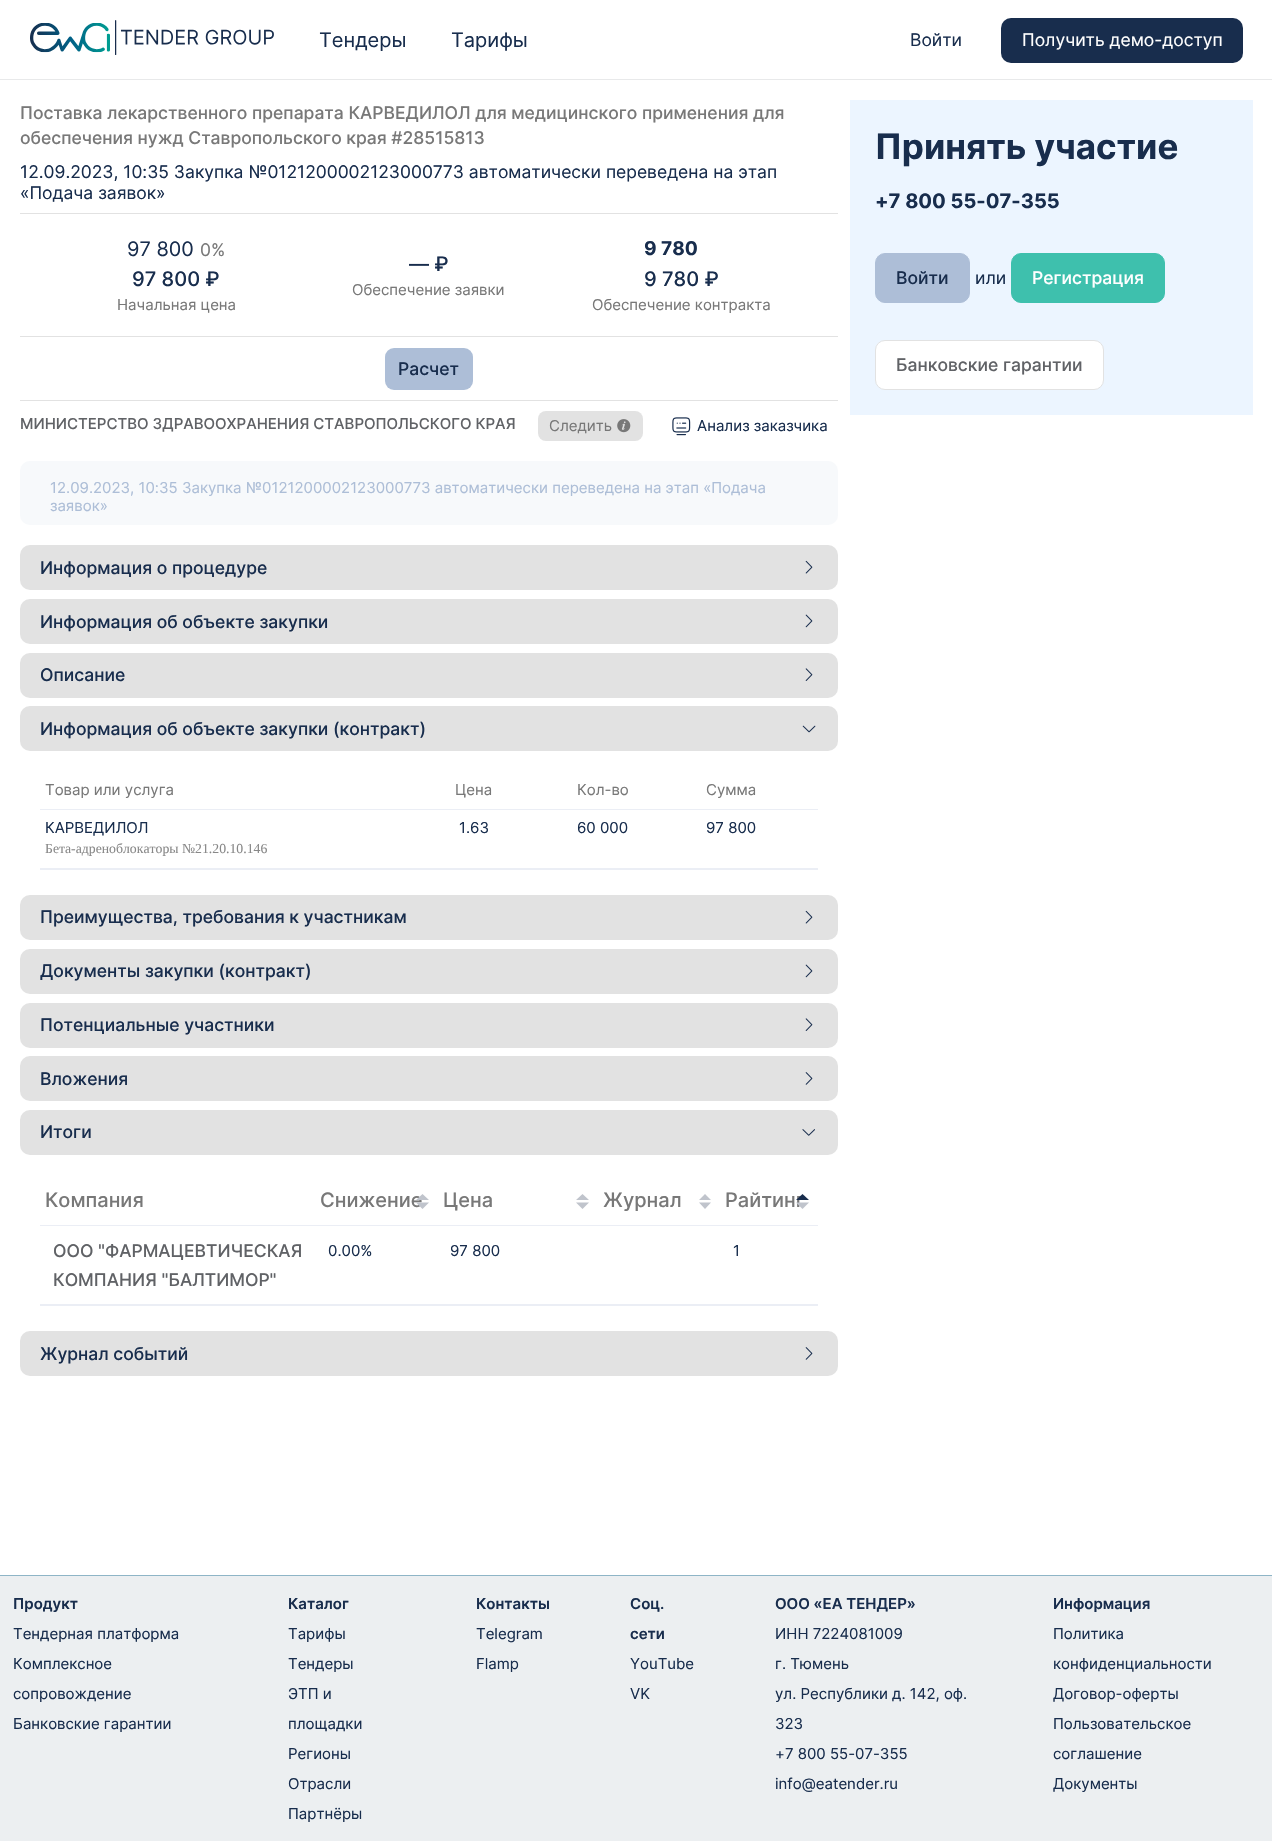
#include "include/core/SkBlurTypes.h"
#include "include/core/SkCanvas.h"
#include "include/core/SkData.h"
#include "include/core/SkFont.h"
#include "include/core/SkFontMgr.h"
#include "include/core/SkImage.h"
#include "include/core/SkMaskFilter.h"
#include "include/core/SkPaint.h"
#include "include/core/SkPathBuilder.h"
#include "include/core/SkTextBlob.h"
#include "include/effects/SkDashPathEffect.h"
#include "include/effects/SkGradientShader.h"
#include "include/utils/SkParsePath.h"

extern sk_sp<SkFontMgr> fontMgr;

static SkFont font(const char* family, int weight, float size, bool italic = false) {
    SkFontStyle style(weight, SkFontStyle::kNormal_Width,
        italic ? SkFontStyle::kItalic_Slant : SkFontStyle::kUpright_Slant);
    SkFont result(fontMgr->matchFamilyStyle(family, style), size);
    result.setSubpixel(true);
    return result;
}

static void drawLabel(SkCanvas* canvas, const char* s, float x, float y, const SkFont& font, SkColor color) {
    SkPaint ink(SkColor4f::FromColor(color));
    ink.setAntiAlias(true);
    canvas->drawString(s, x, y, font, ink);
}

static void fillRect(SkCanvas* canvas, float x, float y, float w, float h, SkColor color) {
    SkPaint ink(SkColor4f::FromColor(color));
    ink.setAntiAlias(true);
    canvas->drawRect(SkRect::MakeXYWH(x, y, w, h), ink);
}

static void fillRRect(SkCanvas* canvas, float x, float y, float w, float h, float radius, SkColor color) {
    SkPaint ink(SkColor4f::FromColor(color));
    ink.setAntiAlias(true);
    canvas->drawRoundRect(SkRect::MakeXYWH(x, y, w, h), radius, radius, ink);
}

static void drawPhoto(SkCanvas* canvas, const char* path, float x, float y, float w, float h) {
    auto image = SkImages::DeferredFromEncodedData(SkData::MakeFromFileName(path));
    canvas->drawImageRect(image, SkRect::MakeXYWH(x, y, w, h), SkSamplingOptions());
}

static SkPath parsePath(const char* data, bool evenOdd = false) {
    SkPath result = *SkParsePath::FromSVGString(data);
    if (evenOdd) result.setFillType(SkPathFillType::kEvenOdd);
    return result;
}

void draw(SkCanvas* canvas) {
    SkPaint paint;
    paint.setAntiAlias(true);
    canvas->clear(0xFFFFFFFF);
    fillRect(canvas, 0, 79, 1272, 1, 0xFFE8E9EA);
    drawPhoto(canvas, "assets/img1.png", 30, 20, 244, 35);
    SkFont font1 = font("Inter", 400, 20);
    drawLabel(canvas, "Тендеры", 319, 47, font1, 0xFF182D4D);
    drawLabel(canvas, "Тарифы", 451, 47, font1, 0xFF182D4D);
    SkFont font2 = font("Inter", 400, 17.5f);
    drawLabel(canvas, "Войти", 910, 46, font2, 0xFF182D4D);
    fillRRect(canvas, 1001, 18, 242, 45, 10, 0xFF182D4D);
    drawLabel(canvas, "Получить демо-доступ", 1022, 46, font2, 0xFFFFFFFF);
    SkFont font3 = font("Inter", 500, 17.5f);
    drawLabel(canvas, "Поставка лекарственного препарата КАРВЕДИЛОЛ для медицинского применения для", 20, 119, font3, 0xFF787878);
    drawLabel(canvas, "обеспечения нужд Ставропольского края #28515813", 20, 144, font3, 0xFF787878);
    drawLabel(canvas, "12.09.2023, 10:35 Закупка №0121200002123000773 автоматически переведена на этап", 20, 178, font2, 0xFF182D4D);
    drawLabel(canvas, "«Подача заявок»", 20, 199, font2, 0xFF182D4D);
    fillRect(canvas, 20, 213, 818, 1, 0xFFE2E2E2);
    drawLabel(canvas, "97 800", 127, 256, font1, 0xFF182D4D);
    drawLabel(canvas, "0%", 200, 256, font2, 0xFF787878);
    SkFont font4 = font("Inter", 500, 20);
    drawLabel(canvas, "97 800 ₽", 132, 286, font4, 0xFF182D4D);
    SkFont font5 = font("Inter", 400, 15);
    drawLabel(canvas, "Начальная цена", 117, 310, font5, 0xFF787878);
    drawLabel(canvas, "— ₽", 409, 271, font4, 0xFF182D4D);
    drawLabel(canvas, "Обеспечение заявки", 352, 295, font5, 0xFF787878);
    SkFont font6 = font("Inter", 700, 19);
    drawLabel(canvas, "9 780", 644, 255, font6, 0xFF182D4D);
    drawLabel(canvas, "9 780 ₽", 644, 286, font4, 0xFF182D4D);
    drawLabel(canvas, "Обеспечение контракта", 592, 310, font5, 0xFF787878);
    fillRect(canvas, 20, 336, 818, 1, 0xFFE2E2E2);
    fillRRect(canvas, 385, 348, 88, 42, 9, 0xFFADBED7);
    drawLabel(canvas, "Расчет", 398, 375, font3, 0xFF182D4D);
    fillRect(canvas, 20, 400, 818, 1, 0xFFE2E2E2);
    SkFont font7 = font("Inter", 500, 15);
    drawLabel(canvas, "МИНИСТЕРСТВО ЗДРАВООХРАНЕНИЯ СТАВРОПОЛЬСКОГО КРАЯ", 20, 429, font7, 0xFF606266);
    fillRRect(canvas, 538, 411, 105, 30, 8, 0xFFE2E2E2);
    drawLabel(canvas, "Следить", 549, 431, font5, 0xFF787878);
    drawPhoto(canvas, "assets/img2.png", 617, 419, 14, 14);
    drawPhoto(canvas, "assets/img3.png", 672, 417, 19, 19);
    drawLabel(canvas, "Анализ заказчика", 697, 431, font5, 0xFF182D4D);
    fillRRect(canvas, 20, 461, 818, 64, 10, 0xFFF7F9FB);
    drawLabel(canvas, "12.09.2023, 10:35 Закупка №0121200002123000773 автоматически переведена на этап «Подача", 50, 493, font5, 0xFFADBED7);
    drawLabel(canvas, "заявок»", 50, 511, font5, 0xFFADBED7);
    fillRRect(canvas, 20, 545, 818, 45, 10, 0xFFE2E2E2);
    drawLabel(canvas, "Информация о процедуре", 40, 574, font3, 0xFF182D4D);
    drawPhoto(canvas, "assets/img4.png", 805, 560, 8, 14);
    fillRRect(canvas, 20, 599, 818, 45, 10, 0xFFE2E2E2);
    drawLabel(canvas, "Информация об объекте закупки", 40, 628, font3, 0xFF182D4D);
    drawPhoto(canvas, "assets/img5.png", 805, 614, 8, 14);
    fillRRect(canvas, 20, 653, 818, 45, 10, 0xFFE2E2E2);
    drawLabel(canvas, "Описание", 40, 681, font3, 0xFF182D4D);
    drawPhoto(canvas, "assets/img6.png", 805, 668, 8, 13);
    fillRRect(canvas, 20, 706, 818, 45, 10, 0xFFE2E2E2);
    drawLabel(canvas, "Информация об объекте закупки (контракт)", 40, 735, font3, 0xFF182D4D);
    drawPhoto(canvas, "assets/img7.png", 802, 725, 14, 8);
    fillRect(canvas, 40, 809, 778, 1, 0xFFEBEEF5);
    drawLabel(canvas, "Товар или услуга", 45, 795, font5, 0xFF787878);
    drawLabel(canvas, "Цена", 455, 795, font5, 0xFF787878);
    drawLabel(canvas, "Кол-во", 577, 795, font5, 0xFF787878);
    drawLabel(canvas, "Сумма", 706, 795, font5, 0xFF787878);
    fillRect(canvas, 40, 868, 778, 2, 0xFFEBEEF5);
    drawLabel(canvas, "КАРВЕДИЛОЛ", 45, 833, font5, 0xFF182D4D);
    SkFont font8 = font("Liberation Serif", 400, 13.75f);
    drawLabel(canvas, "Бета-адреноблокаторы №21.20.10.146", 45, 853, font8, 0xFF888888);
    drawLabel(canvas, "1.63", 459, 833, font5, 0xFF182D4D);
    drawLabel(canvas, "60 000", 577, 833, font5, 0xFF182D4D);
    drawLabel(canvas, "97 800", 706, 833, font5, 0xFF182D4D);
    fillRRect(canvas, 20, 895, 818, 45, 10, 0xFFE2E2E2);
    drawLabel(canvas, "Преимущества, требования к участникам", 40, 923, font3, 0xFF182D4D);
    drawPhoto(canvas, "assets/img4.png", 805, 910, 8, 14);
    fillRRect(canvas, 20, 949, 818, 45, 10, 0xFFE2E2E2);
    drawLabel(canvas, "Документы закупки (контракт)", 40, 977, font3, 0xFF182D4D);
    drawPhoto(canvas, "assets/img5.png", 805, 964, 8, 14);
    fillRRect(canvas, 20, 1003, 818, 45, 10, 0xFFE2E2E2);
    drawLabel(canvas, "Потенциальные участники", 40, 1031, font3, 0xFF182D4D);
    drawPhoto(canvas, "assets/img6.png", 805, 1018, 8, 13);
    fillRRect(canvas, 20, 1056, 818, 45, 10, 0xFFE2E2E2);
    drawLabel(canvas, "Вложения", 40, 1085, font3, 0xFF182D4D);
    drawPhoto(canvas, "assets/img8.png", 805, 1072, 8, 13);
    fillRRect(canvas, 20, 1110, 818, 45, 10, 0xFFE2E2E2);
    drawLabel(canvas, "Итоги", 40, 1138, font3, 0xFF182D4D);
    drawPhoto(canvas, "assets/img9.png", 802, 1129, 13, 7);
    fillRect(canvas, 40, 1225, 778, 1, 0xFFEBEEF5);
    drawLabel(canvas, "Компания", 45, 1207, font4, 0xFF787878);
    drawLabel(canvas, "Снижение", 320, 1207, font4, 0xFF787878);
    paint.setColor(0xFFC0C4CC);
    canvas->drawPath(parsePath("M429 1200H416L422.5 1194ZM416 1202.5H429L422.5 1209Z"), paint);
    drawLabel(canvas, "Цена", 443, 1207, font4, 0xFF787878);
    canvas->drawPath(parsePath("M589 1200H576L582.5 1194ZM576 1202.5H589L582.5 1209Z"), paint);
    drawLabel(canvas, "Журнал", 603, 1207, font4, 0xFF787878);
    canvas->drawPath(parsePath("M711 1200H699L705 1194ZM699 1202.5H711L705 1209Z"), paint);
    drawLabel(canvas, "Райтинг", 725, 1207, font4, 0xFF787878);
    paint.setColor(0xFF182D4D);
    canvas->drawPath(parsePath("M809 1200H796L802.5 1194Z"), paint);
    paint.setColor(0xFFC0C4CC);
    canvas->drawPath(parsePath("M796 1202.5H809L802.5 1209Z"), paint);
    fillRect(canvas, 40, 1304, 778, 2, 0xFFEBEEF5);
    drawLabel(canvas, "ООО \"ФАРМАЦЕВТИЧЕСКАЯ", 53, 1257, font3, 0xFF606266);
    drawLabel(canvas, "КОМПАНИЯ \"БАЛТИМОР\"", 53, 1286, font3, 0xFF606266);
    drawLabel(canvas, "0.00%", 328, 1256, font5, 0xFF182D4D);
    drawLabel(canvas, "97 800", 450, 1256, font5, 0xFF182D4D);
    drawLabel(canvas, "1", 733, 1256, font5, 0xFF182D4D);
    fillRRect(canvas, 20, 1331, 818, 45, 10, 0xFFE2E2E2);
    drawLabel(canvas, "Журнал событий", 40, 1360, font3, 0xFF182D4D);
    drawPhoto(canvas, "assets/img8.png", 805, 1347, 8, 13);
    fillRect(canvas, 850, 100, 403, 315, 0xFFECF5FF);
    SkFont font9 = font("Inter", 700, 35);
    drawLabel(canvas, "Принять участие", 875, 159, font9, 0xFF182D4D);
    SkFont font10 = font("Inter", 700, 20);
    drawLabel(canvas, "+7 800 55-07-355", 875, 208, font10, 0xFF182D4D);
    paint.setColor(0xFFADBED7);
    canvas->drawRoundRect(SkRect::MakeXYWH(875.5f, 253.5f, 94, 49), 9.5f, 9.5f, paint);
    paint.setStroke(true);
    paint.setStrokeWidth(1);
    canvas->drawRoundRect(SkRect::MakeXYWH(875.5f, 253.5f, 94, 49), 9.5f, 9.5f, paint);
    drawLabel(canvas, "Войти", 896, 284, font3, 0xFF182D4D);
    drawLabel(canvas, "или", 975, 284, font2, 0xFF182D4D);
    paint.setStroke(false);
    paint.setColor(0xFF3EC0AD);
    canvas->drawRoundRect(SkRect::MakeXYWH(1011.5f, 253.5f, 153, 49), 9.5f, 9.5f, paint);
    paint.setStroke(true);
    canvas->drawRoundRect(SkRect::MakeXYWH(1011.5f, 253.5f, 153, 49), 9.5f, 9.5f, paint);
    drawLabel(canvas, "Регистрация", 1032, 284, font3, 0xFFFFFFFF);
    paint.setStroke(false);
    paint.setColor(0xFFFFFFFF);
    canvas->drawRoundRect(SkRect::MakeXYWH(875.5f, 340.5f, 228, 49), 9.5f, 9.5f, paint);
    paint.setStroke(true);
    paint.setColor(0xFFE2E2E2);
    canvas->drawRoundRect(SkRect::MakeXYWH(875.5f, 340.5f, 228, 49), 9.5f, 9.5f, paint);
    drawLabel(canvas, "Банковские гарантии", 896, 371, font3, 0xFF606266);
    fillRect(canvas, 0, 1576, 1272, 265, 0xFFECEFF1);
    fillRect(canvas, 0, 1575, 1272, 1, 0xFF8EB5C7);
    SkFont font11 = font("Inter", 600, 15);
    drawLabel(canvas, "Продукт", 13, 1609, font11, 0xFF182D4D);
    drawLabel(canvas, "Тендерная платформа", 13, 1639, font5, 0xFF182D4D);
    drawLabel(canvas, "Комплексное", 13, 1669, font5, 0xFF182D4D);
    drawLabel(canvas, "сопровождение", 13, 1699, font5, 0xFF182D4D);
    drawLabel(canvas, "Банковские гарантии", 13, 1729, font5, 0xFF182D4D);
    drawLabel(canvas, "Каталог", 288, 1609, font11, 0xFF182D4D);
    drawLabel(canvas, "Тарифы", 288, 1639, font5, 0xFF182D4D);
    drawLabel(canvas, "Тендеры", 288, 1669, font5, 0xFF182D4D);
    drawLabel(canvas, "ЭТП и", 288, 1699, font5, 0xFF182D4D);
    drawLabel(canvas, "площадки", 288, 1729, font5, 0xFF182D4D);
    drawLabel(canvas, "Регионы", 288, 1759, font5, 0xFF182D4D);
    drawLabel(canvas, "Отрасли", 288, 1789, font5, 0xFF182D4D);
    drawLabel(canvas, "Партнёры", 288, 1819, font5, 0xFF182D4D);
    drawLabel(canvas, "Контакты", 476, 1609, font11, 0xFF182D4D);
    drawLabel(canvas, "Telegram", 476, 1639, font5, 0xFF182D4D);
    drawLabel(canvas, "Flamp", 476, 1669, font5, 0xFF182D4D);
    drawLabel(canvas, "Соц.", 630, 1609, font11, 0xFF182D4D);
    drawLabel(canvas, "сети", 630, 1639, font11, 0xFF182D4D);
    drawLabel(canvas, "YouTube", 630, 1669, font5, 0xFF182D4D);
    drawLabel(canvas, "VK", 630, 1699, font5, 0xFF182D4D);
    drawLabel(canvas, "ООО «ЕА ТЕНДЕР»", 775, 1609, font11, 0xFF182D4D);
    drawLabel(canvas, "ИНН 7224081009", 775, 1639, font5, 0xFF182D4D);
    drawLabel(canvas, "г. Тюмень", 775, 1669, font5, 0xFF182D4D);
    drawLabel(canvas, "ул. Республики д. 142, оф.", 775, 1699, font5, 0xFF182D4D);
    drawLabel(canvas, "323", 775, 1729, font5, 0xFF182D4D);
    drawLabel(canvas, "+7 800 55-07-355", 775, 1759, font5, 0xFF182D4D);
    drawLabel(canvas, "info@eatender.ru", 775, 1789, font5, 0xFF182D4D);
    drawLabel(canvas, "Информация", 1053, 1609, font11, 0xFF182D4D);
    drawLabel(canvas, "Политика", 1053, 1639, font5, 0xFF182D4D);
    drawLabel(canvas, "конфиденциальности", 1053, 1669, font5, 0xFF182D4D);
    drawLabel(canvas, "Договор-оферты", 1053, 1699, font5, 0xFF182D4D);
    drawLabel(canvas, "Пользовательское", 1053, 1729, font5, 0xFF182D4D);
    drawLabel(canvas, "соглашение", 1053, 1759, font5, 0xFF182D4D);
    drawLabel(canvas, "Документы", 1053, 1789, font5, 0xFF182D4D);
}
